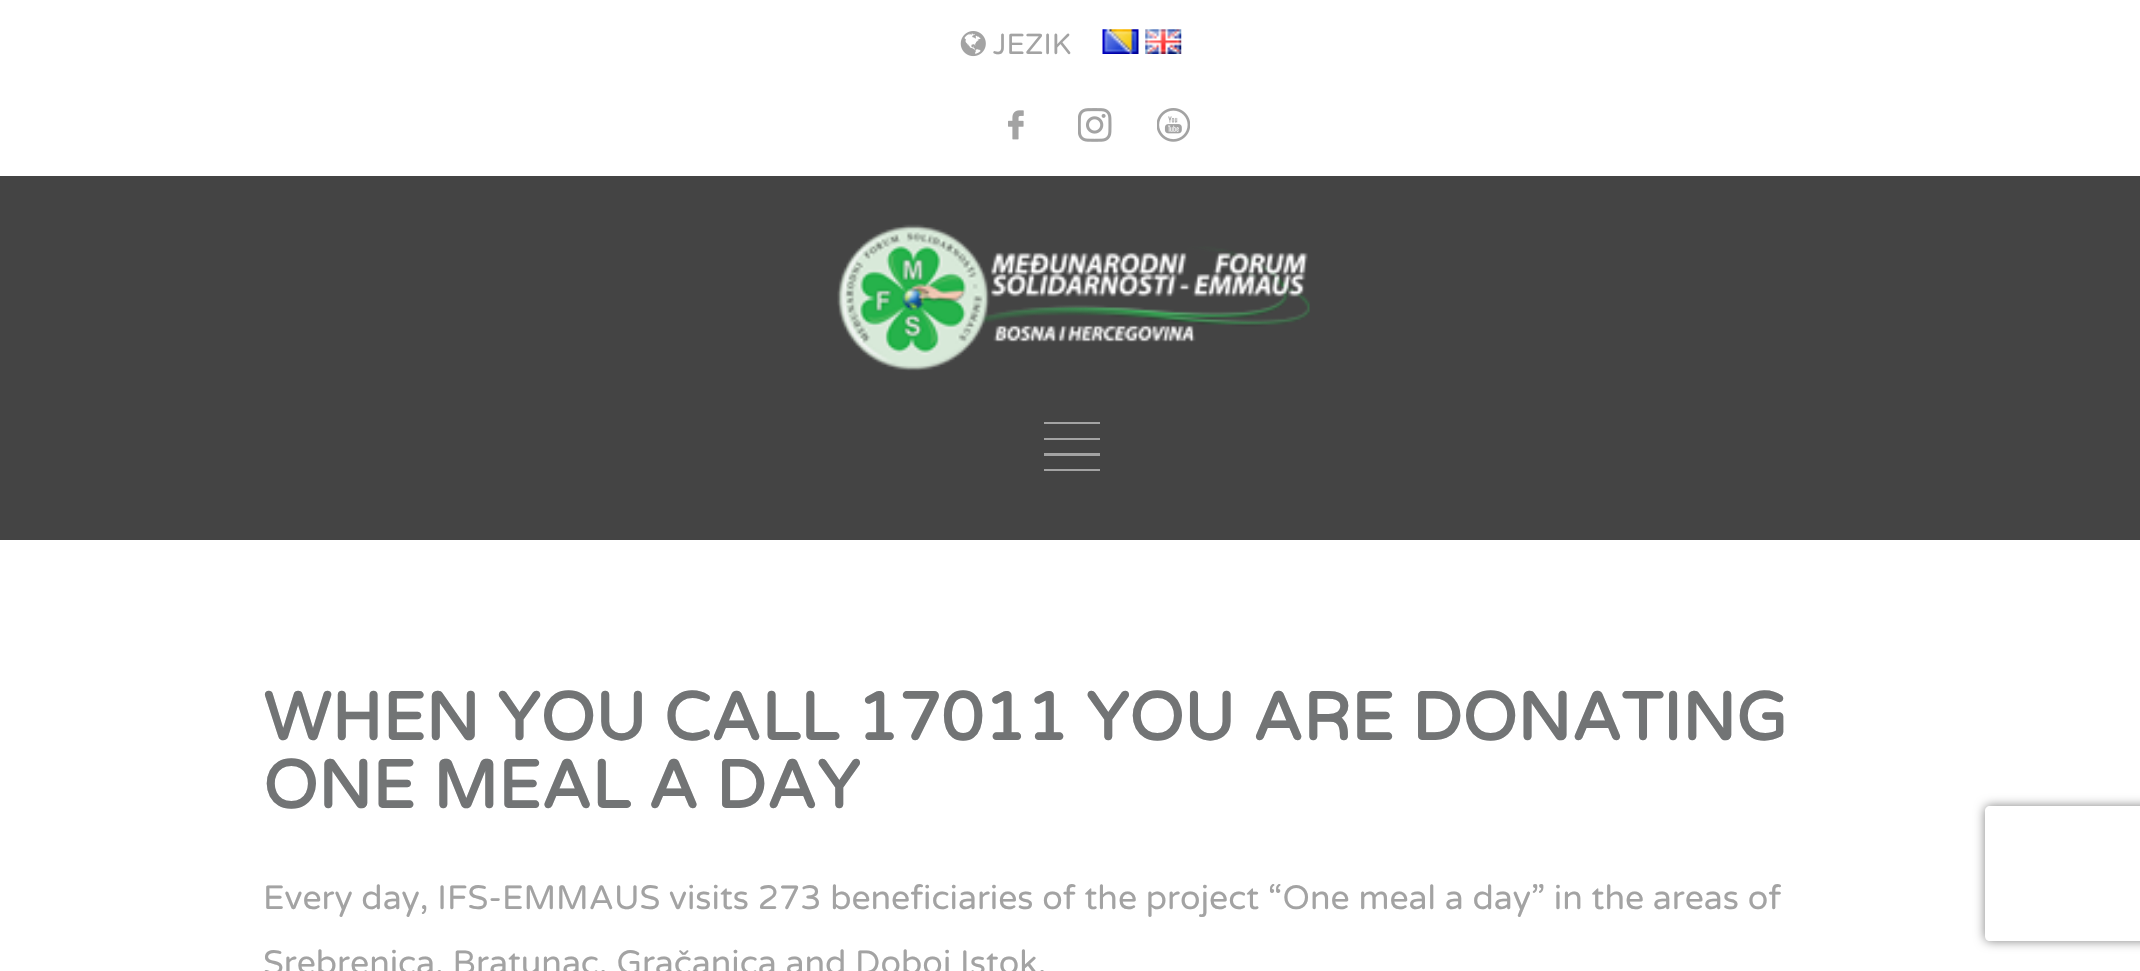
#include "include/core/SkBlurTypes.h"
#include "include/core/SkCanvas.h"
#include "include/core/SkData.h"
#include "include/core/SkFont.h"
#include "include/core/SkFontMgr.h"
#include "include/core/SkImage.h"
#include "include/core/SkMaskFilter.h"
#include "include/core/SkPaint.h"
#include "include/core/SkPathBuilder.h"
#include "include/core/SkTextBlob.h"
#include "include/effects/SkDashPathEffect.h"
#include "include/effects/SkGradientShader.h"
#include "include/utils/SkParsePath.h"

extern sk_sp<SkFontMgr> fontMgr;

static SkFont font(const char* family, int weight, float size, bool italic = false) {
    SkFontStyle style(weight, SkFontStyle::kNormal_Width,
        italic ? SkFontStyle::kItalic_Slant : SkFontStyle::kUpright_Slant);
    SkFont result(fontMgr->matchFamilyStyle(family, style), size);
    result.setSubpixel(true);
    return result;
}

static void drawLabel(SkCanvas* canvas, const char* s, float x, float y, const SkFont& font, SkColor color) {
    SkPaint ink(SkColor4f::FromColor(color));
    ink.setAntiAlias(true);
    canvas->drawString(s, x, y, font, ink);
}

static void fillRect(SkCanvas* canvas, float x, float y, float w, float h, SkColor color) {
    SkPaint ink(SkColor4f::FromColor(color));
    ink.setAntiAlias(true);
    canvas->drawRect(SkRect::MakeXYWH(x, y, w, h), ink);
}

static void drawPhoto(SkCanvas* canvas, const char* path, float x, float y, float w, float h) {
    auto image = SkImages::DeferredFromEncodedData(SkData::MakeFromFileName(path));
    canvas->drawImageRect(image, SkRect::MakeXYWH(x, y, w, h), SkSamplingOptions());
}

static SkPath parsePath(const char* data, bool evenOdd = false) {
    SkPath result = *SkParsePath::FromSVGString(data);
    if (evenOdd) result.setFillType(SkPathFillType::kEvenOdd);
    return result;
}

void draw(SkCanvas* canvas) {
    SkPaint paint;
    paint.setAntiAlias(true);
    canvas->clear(0xFFFFFFFF);
    drawPhoto(canvas, "assets/img1.png", 960, 31, 26, 26);
    SkFont font1 = font("Varela Round", 400, 29);
    drawLabel(canvas, "JEZIK", 993, 54, font1, 0xFFA3A3A3);
    drawPhoto(canvas, "assets/img2.png", 1102, 29, 37, 25);
    drawPhoto(canvas, "assets/img3.png", 1145, 29, 37, 25);
    drawPhoto(canvas, "assets/img4.png", 1008, 110, 16, 30);
    drawPhoto(canvas, "assets/img5.png", 1078, 108, 34, 34);
    drawPhoto(canvas, "assets/img6.png", 1157, 108, 33, 34);
    fillRect(canvas, 0, 176, 2140, 364, 0xFF444444);
    drawPhoto(canvas, "assets/img7.png", 837, 224, 473, 147);
    fillRect(canvas, 1044, 422, 56, 2, 0xFFA3A3A3);
    fillRect(canvas, 1044, 438, 56, 2, 0xFFA3A3A3);
    fillRect(canvas, 1044, 453, 56, 3, 0xFFA3A3A3);
    fillRect(canvas, 1044, 469, 56, 2, 0xFFA3A3A3);
    SkFont font2 = font("Varela Round", 700, 67.5f);
    drawLabel(canvas, "WHEN YOU CALL 17011 YOU ARE DONATING", 263, 740, font2, 0xFF727475);
    drawLabel(canvas, "ONE MEAL A DAY", 263, 808, font2, 0xFF727475);
    SkFont font3 = font("Varela Round", 400, 33.75f);
    drawLabel(canvas, "Every day, IFS-EMMAUS visits 273 beneficiaries of the project “One meal a day” in the areas of", 263, 909, font3, 0xFFA3A3A3);
    drawLabel(canvas, "Srebrenica, Bratunac, Gračanica and Doboj Istok.", 263, 974, font3, 0xFFA3A3A3);
    canvas->save();
    canvas->clipPath(parsePath("M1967 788H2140V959H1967ZM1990 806H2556C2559 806 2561 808 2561 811V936C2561 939 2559 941 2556 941H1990C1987 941 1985 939 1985 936V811C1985 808 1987 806 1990 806Z", true), true);
    paint.setColor(0xFF808080);
    paint.setMaskFilter(SkMaskFilter::MakeBlur(kNormal_SkBlurStyle, 5.5f));
    canvas->drawRoundRect(SkRect::MakeXYWH(1985, 806, 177, 135), 5, 5, paint);
    paint.setMaskFilter(nullptr);
    canvas->restore();
}
